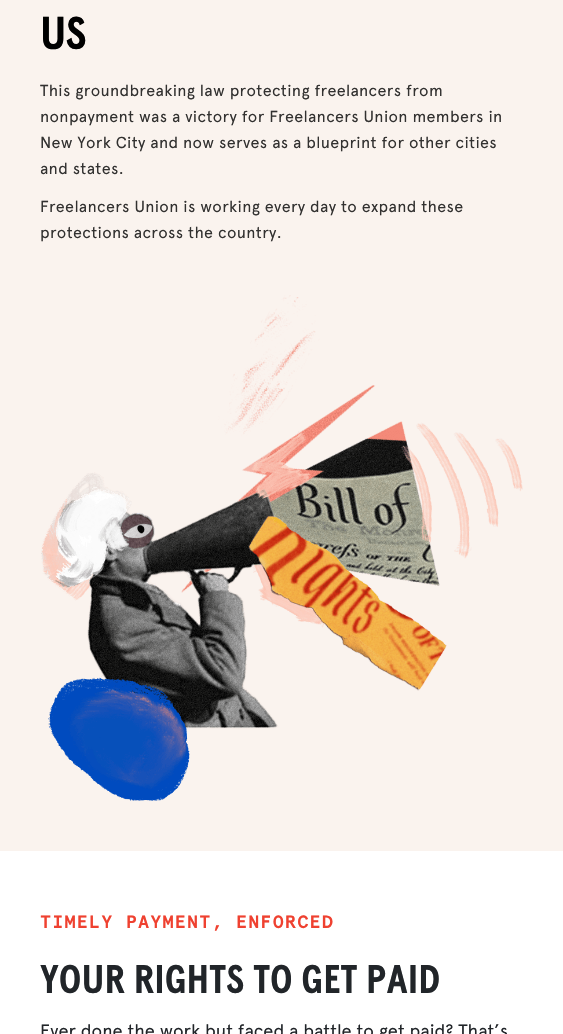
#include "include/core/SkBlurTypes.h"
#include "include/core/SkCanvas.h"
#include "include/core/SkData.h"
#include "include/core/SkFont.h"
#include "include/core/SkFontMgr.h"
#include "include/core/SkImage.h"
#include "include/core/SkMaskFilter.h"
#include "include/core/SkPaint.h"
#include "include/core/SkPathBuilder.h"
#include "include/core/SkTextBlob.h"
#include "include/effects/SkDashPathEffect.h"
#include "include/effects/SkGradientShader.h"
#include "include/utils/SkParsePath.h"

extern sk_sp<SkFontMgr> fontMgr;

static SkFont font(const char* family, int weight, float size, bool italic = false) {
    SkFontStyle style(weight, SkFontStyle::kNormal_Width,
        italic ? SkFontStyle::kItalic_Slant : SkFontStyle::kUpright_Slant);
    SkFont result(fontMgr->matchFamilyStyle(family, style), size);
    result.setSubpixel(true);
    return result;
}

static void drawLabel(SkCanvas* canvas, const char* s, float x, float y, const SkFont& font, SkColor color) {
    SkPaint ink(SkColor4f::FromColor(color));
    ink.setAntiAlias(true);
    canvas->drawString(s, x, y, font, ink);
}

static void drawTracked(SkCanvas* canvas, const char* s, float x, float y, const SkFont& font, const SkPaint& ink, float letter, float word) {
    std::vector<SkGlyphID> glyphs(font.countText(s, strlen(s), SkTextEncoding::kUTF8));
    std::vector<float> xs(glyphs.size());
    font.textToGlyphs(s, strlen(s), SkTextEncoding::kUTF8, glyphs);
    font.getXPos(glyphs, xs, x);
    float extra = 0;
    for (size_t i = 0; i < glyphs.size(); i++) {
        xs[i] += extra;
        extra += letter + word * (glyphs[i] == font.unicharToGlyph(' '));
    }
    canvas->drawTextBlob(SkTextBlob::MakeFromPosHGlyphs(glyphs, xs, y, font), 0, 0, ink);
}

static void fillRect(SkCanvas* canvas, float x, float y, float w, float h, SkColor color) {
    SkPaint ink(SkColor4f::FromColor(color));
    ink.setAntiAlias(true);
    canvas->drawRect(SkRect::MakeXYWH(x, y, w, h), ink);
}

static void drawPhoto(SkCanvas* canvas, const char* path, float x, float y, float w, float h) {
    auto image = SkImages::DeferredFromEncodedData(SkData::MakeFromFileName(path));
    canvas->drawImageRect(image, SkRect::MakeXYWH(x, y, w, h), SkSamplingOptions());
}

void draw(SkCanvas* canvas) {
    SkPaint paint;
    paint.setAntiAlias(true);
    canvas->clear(0xFFFFFFFF);
    fillRect(canvas, 0, 0, 563, 851, 0xFFFAF3EE);
    SkFont font1 = font("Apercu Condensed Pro", 700, 46);
    paint.setColor(0xFF000000);
    drawTracked(canvas, "US", 40, 49, font1, paint, -1, 0);
    SkFont font2 = font("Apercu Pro", 400, 16);
    paint.setColor(0xFF323130);
    drawTracked(canvas, "This groundbreaking law protecting freelancers from", 40, 96, font2, paint, 0.32f, 0);
    drawTracked(canvas, "nonpayment was a victory for Freelancers Union members in", 40, 122, font2, paint, 0.32f, 0);
    drawTracked(canvas, "New York City and now serves as a blueprint for other cities", 40, 148, font2, paint, 0.32f, 0);
    drawTracked(canvas, "and states.", 40, 174, font2, paint, 0.32f, 0);
    drawTracked(canvas, "Freelancers Union is working every day to expand these", 40, 212, font2, paint, 0.32f, 0);
    drawTracked(canvas, "protections across the country.", 40, 238, font2, paint, 0.32f, 0);
    drawPhoto(canvas, "assets/img1.png", 41, 295, 482, 506);
    SkFont font3 = font("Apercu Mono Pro", 700, 18);
    paint.setColor(0xFFEF4130);
    drawTracked(canvas, "TIMELY PAYMENT, ENFORCED", 40, 928, font3, paint, 1.1f, 0);
    SkFont font4 = font("Apercu Condensed Pro", 700, 40);
    drawLabel(canvas, "YOUR RIGHTS TO GET PAID", 40, 993, font4, 0xFF212529);
    SkFont font5 = font("Apercu Pro", 400, 18);
    drawLabel(canvas, "Ever done the work but faced a battle to get paid? That’s", 40, 1037, font5, 0xFF212529);
}
